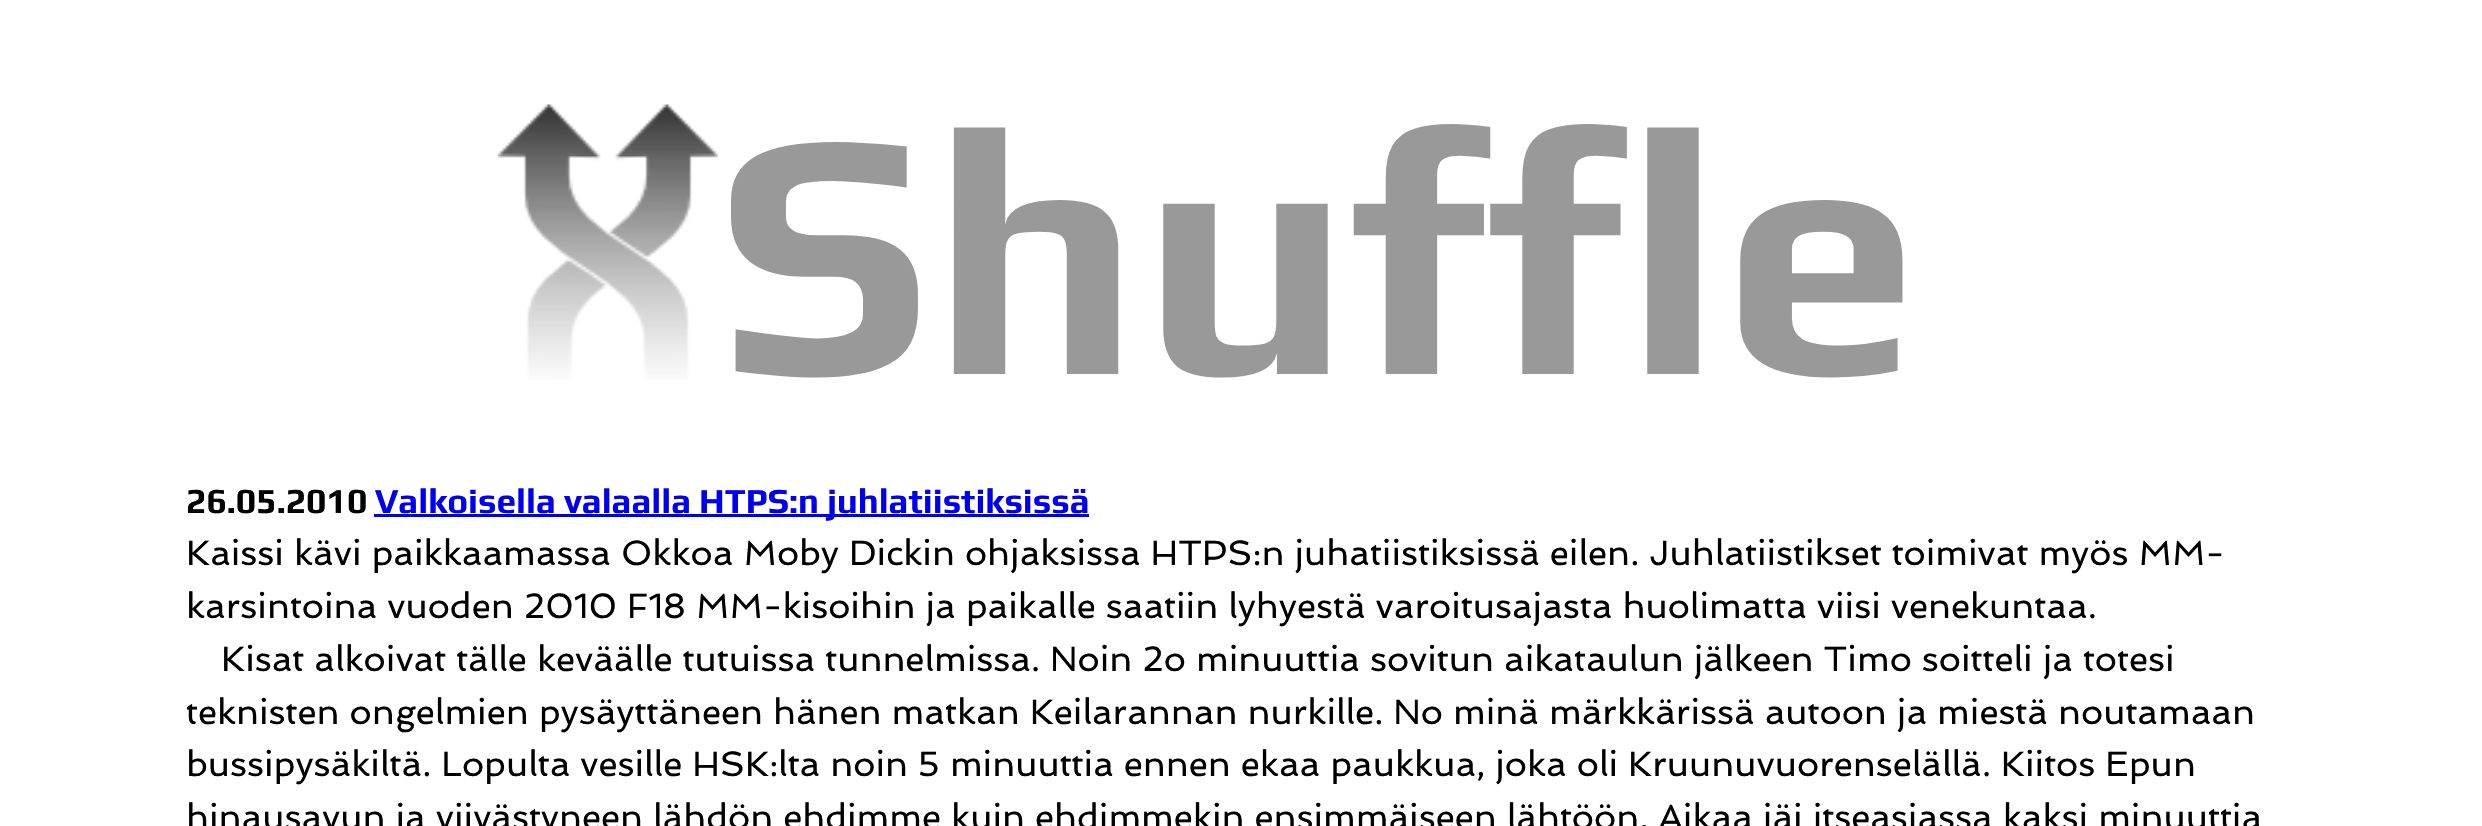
#include "include/core/SkBlurTypes.h"
#include "include/core/SkCanvas.h"
#include "include/core/SkData.h"
#include "include/core/SkFont.h"
#include "include/core/SkFontMgr.h"
#include "include/core/SkImage.h"
#include "include/core/SkMaskFilter.h"
#include "include/core/SkPaint.h"
#include "include/core/SkPathBuilder.h"
#include "include/core/SkTextBlob.h"
#include "include/effects/SkDashPathEffect.h"
#include "include/effects/SkGradientShader.h"
#include "include/utils/SkParsePath.h"

extern sk_sp<SkFontMgr> fontMgr;

static SkFont font(const char* family, int weight, float size, bool italic = false) {
    SkFontStyle style(weight, SkFontStyle::kNormal_Width,
        italic ? SkFontStyle::kItalic_Slant : SkFontStyle::kUpright_Slant);
    SkFont result(fontMgr->matchFamilyStyle(family, style), size);
    result.setSubpixel(true);
    return result;
}

static void drawLabel(SkCanvas* canvas, const char* s, float x, float y, const SkFont& font, SkColor color) {
    SkPaint ink(SkColor4f::FromColor(color));
    ink.setAntiAlias(true);
    canvas->drawString(s, x, y, font, ink);
}

static void fillRect(SkCanvas* canvas, float x, float y, float w, float h, SkColor color) {
    SkPaint ink(SkColor4f::FromColor(color));
    ink.setAntiAlias(true);
    canvas->drawRect(SkRect::MakeXYWH(x, y, w, h), ink);
}

static void drawPhoto(SkCanvas* canvas, const char* path, float x, float y, float w, float h) {
    auto image = SkImages::DeferredFromEncodedData(SkData::MakeFromFileName(path));
    canvas->drawImageRect(image, SkRect::MakeXYWH(x, y, w, h), SkSamplingOptions());
}

void draw(SkCanvas* canvas) {
    SkPaint paint;
    paint.setAntiAlias(true);
    canvas->clear(0xFFFFFFFF);
    drawPhoto(canvas, "assets/img1.png", 497, 104, 221, 276);
    SkFont font1 = font("Play", 700, 352);
    drawLabel(canvas, "Shuffle", 718, 374, font1, 0xFF999999);
    SkFont font2 = font("Play", 700, 35.2f);
    drawLabel(canvas, "26.05.2010", 186, 513, font2, 0xFF000000);
    fillRect(canvas, 374, 514, 715, 3, 0xFF0000EE);
    drawLabel(canvas, "Valkoisella valaalla HTPS:n juhlatiistiksissä", 375, 513, font2, 0xFF0000EE);
    SkFont font3 = font("Spinnaker", 400, 35.2f);
    drawLabel(canvas, "Kaissi kävi paikkaamassa Okkoa Moby Dickin ohjaksissa HTPS:n juhatiistiksissä eilen. Juhlatiistikset toimivat myös MM-", 186, 565, font3, 0xFF000000);
    drawLabel(canvas, "karsintoina vuoden 2010 F18 MM-kisoihin ja paikalle saatiin lyhyestä varoitusajasta huolimatta viisi venekuntaa.", 186, 618, font3, 0xFF000000);
    drawLabel(canvas, "Kisat alkoivat tälle keväälle tutuissa tunnelmissa. Noin 2o minuuttia sovitun aikataulun jälkeen Timo soitteli ja totesi", 221, 671, font3, 0xFF000000);
    drawLabel(canvas, "teknisten ongelmien pysäyttäneen hänen matkan Keilarannan nurkille. No minä märkkärissä autoon ja miestä noutamaan", 186, 724, font3, 0xFF000000);
    drawLabel(canvas, "bussipysäkiltä. Lopulta vesille HSK:lta noin 5 minuuttia ennen ekaa paukkua, joka oli Kruunuvuorenselällä. Kiitos Epun", 186, 776, font3, 0xFF000000);
    drawLabel(canvas, "hinausavun ja viivästyneen lähdön ehdimme kuin ehdimmekin ensimmäiseen lähtöön. Aikaa jäi itseasiassa kaksi minuuttia", 186, 829, font3, 0xFF000000);
}
